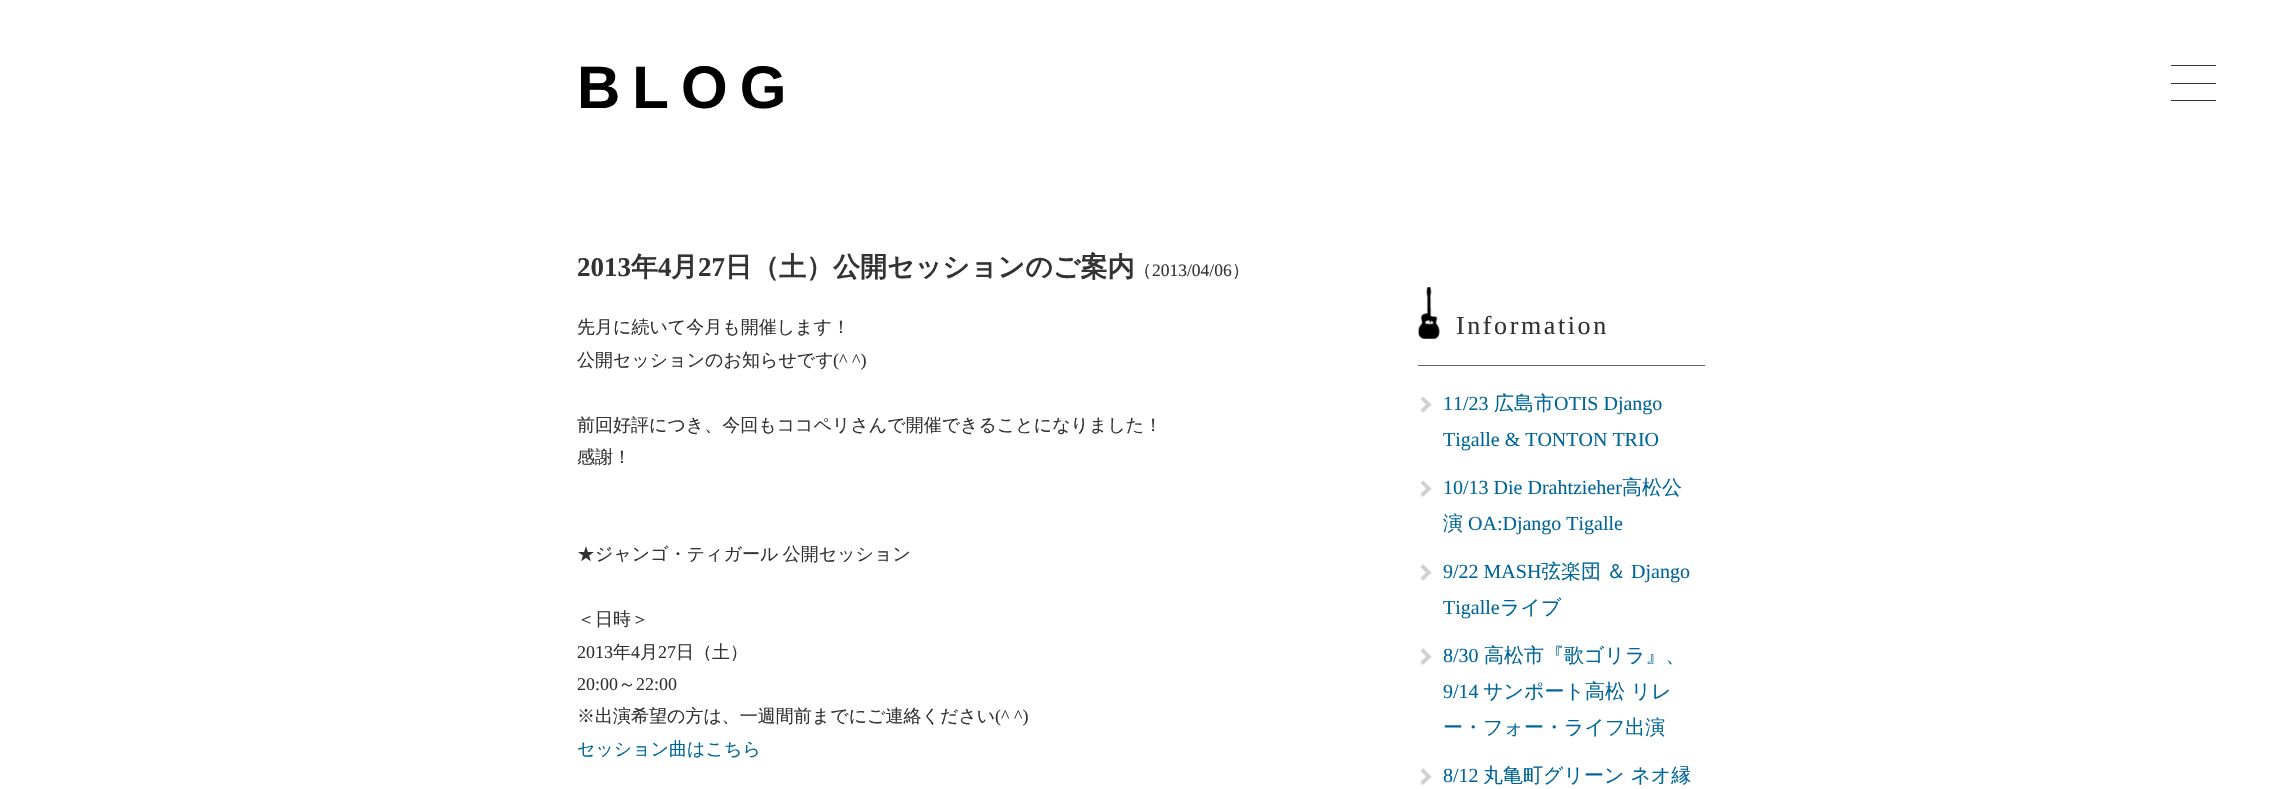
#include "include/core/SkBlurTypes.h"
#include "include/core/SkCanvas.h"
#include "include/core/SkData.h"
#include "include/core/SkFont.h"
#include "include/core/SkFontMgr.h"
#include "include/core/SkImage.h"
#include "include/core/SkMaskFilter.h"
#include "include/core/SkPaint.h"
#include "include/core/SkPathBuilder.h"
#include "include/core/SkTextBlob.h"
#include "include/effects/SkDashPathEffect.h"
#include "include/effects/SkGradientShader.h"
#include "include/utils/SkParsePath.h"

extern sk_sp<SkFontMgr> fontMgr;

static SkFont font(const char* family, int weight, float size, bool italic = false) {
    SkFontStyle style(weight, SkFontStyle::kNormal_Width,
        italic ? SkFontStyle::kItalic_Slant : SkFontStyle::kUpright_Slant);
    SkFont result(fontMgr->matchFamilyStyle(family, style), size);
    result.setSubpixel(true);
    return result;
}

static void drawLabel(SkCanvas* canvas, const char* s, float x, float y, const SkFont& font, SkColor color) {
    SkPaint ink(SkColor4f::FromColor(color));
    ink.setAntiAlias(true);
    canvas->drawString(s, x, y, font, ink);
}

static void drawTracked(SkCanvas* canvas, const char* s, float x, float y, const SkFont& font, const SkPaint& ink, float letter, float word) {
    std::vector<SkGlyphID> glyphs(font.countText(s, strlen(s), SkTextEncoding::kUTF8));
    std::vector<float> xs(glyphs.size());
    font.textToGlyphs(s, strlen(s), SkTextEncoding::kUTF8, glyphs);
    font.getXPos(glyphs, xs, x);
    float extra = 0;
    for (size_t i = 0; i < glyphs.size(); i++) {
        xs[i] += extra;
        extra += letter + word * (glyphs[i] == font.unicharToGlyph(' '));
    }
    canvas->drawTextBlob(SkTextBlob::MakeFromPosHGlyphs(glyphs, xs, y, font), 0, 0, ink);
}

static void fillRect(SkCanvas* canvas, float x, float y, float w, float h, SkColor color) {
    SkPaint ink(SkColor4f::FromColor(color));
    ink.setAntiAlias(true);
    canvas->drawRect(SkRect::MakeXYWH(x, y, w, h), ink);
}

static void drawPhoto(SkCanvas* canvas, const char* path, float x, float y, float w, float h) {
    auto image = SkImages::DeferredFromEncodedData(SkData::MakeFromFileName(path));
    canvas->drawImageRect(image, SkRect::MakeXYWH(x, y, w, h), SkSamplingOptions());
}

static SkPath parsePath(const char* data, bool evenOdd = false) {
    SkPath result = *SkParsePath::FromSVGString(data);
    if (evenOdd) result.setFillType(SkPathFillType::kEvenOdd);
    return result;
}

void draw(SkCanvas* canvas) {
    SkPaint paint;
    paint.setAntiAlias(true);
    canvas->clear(0xFFFFFFFF);
    SkFont font1 = font("Liberation Sans", 700, 60);
    paint.setColor(0xFF000000);
    drawTracked(canvas, "BLOG", 577, 108, font1, paint, 12, 0);
    SkFont font2 = font("Liberation Serif", 700, 27);
    drawLabel(canvas, "2013", 577, 276, font2, 0xFF333333);
    SkFont font3 = font("WenQuanYi Zen Hei", 700, 27);
    drawLabel(canvas, "年", 631, 276, font3, 0xFF333333);
    drawLabel(canvas, "4", 658, 276, font2, 0xFF333333);
    drawLabel(canvas, "月", 671, 276, font3, 0xFF333333);
    drawLabel(canvas, "27", 698, 276, font2, 0xFF333333);
    drawLabel(canvas, "日（土）公開セッションのご案内", 725, 276, font3, 0xFF333333);
    SkFont font4 = font("WenQuanYi Zen Hei", 500, 17.5f);
    drawLabel(canvas, "（", 1134, 276, font4, 0xFF333333);
    SkFont font5 = font("Liberation Serif", 400, 17.5f);
    drawLabel(canvas, "2013/04/06", 1152, 276, font5, 0xFF333333);
    drawLabel(canvas, "）", 1232, 276, font4, 0xFF333333);
    SkFont font6 = font("WenQuanYi Zen Hei", 500, 18);
    drawLabel(canvas, "先月に続いて今月も開催します！", 577, 333, font6, 0xFF333333);
    drawLabel(canvas, "公開セッションのお知らせです", 577, 366, font6, 0xFF333333);
    SkFont font7 = font("Liberation Serif", 400, 18);
    drawLabel(canvas, "(^ ^)", 833, 366, font7, 0xFF333333);
    drawLabel(canvas, "前回好評につき、今回もココペリさんで開催できることになりました！", 577, 431, font6, 0xFF333333);
    drawLabel(canvas, "感謝！", 577, 463, font6, 0xFF333333);
    paint.setColor(0xFF333333);
    drawTracked(canvas, "★ジャンゴ・ティガール 公開セッション", 577, 560, font6, paint, 0, -1);
    drawLabel(canvas, "＜日時＞", 577, 625, font6, 0xFF333333);
    drawLabel(canvas, "2013", 577, 658, font7, 0xFF333333);
    drawLabel(canvas, "年", 613, 658, font6, 0xFF333333);
    drawLabel(canvas, "4", 631, 658, font7, 0xFF333333);
    drawLabel(canvas, "月", 640, 658, font6, 0xFF333333);
    drawLabel(canvas, "27", 658, 658, font7, 0xFF333333);
    drawLabel(canvas, "日（土）", 676, 658, font6, 0xFF333333);
    drawLabel(canvas, "20:00", 577, 690, font7, 0xFF333333);
    drawLabel(canvas, "～", 618, 690, font6, 0xFF333333);
    drawLabel(canvas, "22:00", 636, 690, font7, 0xFF333333);
    drawLabel(canvas, "※出演希望の方は、一週間前までにご連絡ください", 577, 722, font6, 0xFF333333);
    drawLabel(canvas, "(^ ^)", 995, 722, font7, 0xFF333333);
    drawLabel(canvas, "セッション曲はこちら", 577, 755, font6, 0xFF006699);
    fillRect(canvas, 1418, 365, 287, 1, 0xFF666666);
    drawPhoto(canvas, "assets/img1.png", 1418, 287, 22, 52);
    SkFont font8 = font("Liberation Serif", 400, 26);
    drawTracked(canvas, "Information", 1456, 334, font8, paint, 2.6f, 0);
    paint.setColor(0xFFD1D1D1);
    canvas->drawPath(parsePath("M1420.5 399L1423 396.5L1431.5 404.5L1428.5 407Z"), paint);
    canvas->drawPath(parsePath("M1420.5 410L1428.5 402L1431.5 404.5L1423 413Z"), paint);
    SkFont font9 = font("Liberation Serif", 400, 20);
    drawLabel(canvas, "11/23", 1443, 410, font9, 0xFF006699);
    SkFont font10 = font("WenQuanYi Zen Hei", 500, 20);
    drawLabel(canvas, "広島市", 1494, 410, font10, 0xFF006699);
    drawLabel(canvas, "OTIS Django", 1554, 410, font9, 0xFF006699);
    drawLabel(canvas, "Tigalle & TONTON TRIO", 1443, 446, font9, 0xFF006699);
    canvas->drawPath(parsePath("M1420.5 483L1423 480.5L1431.5 488.5L1428.5 491Z"), paint);
    canvas->drawPath(parsePath("M1420.5 494L1428.5 486L1431.5 488.5L1423 497Z"), paint);
    drawLabel(canvas, "10/13 Die Drahtzieher", 1443, 494, font9, 0xFF006699);
    drawLabel(canvas, "高松公", 1622, 494, font10, 0xFF006699);
    drawLabel(canvas, "演", 1443, 530, font10, 0xFF006699);
    drawLabel(canvas, "OA:Django Tigalle", 1468, 530, font9, 0xFF006699);
    canvas->drawPath(parsePath("M1420.5 567L1423 564L1431.5 572.5L1428.5 575Z"), paint);
    canvas->drawPath(parsePath("M1420.5 578L1428.5 570L1431.5 572.5L1423 581Z"), paint);
    drawLabel(canvas, "9/22 MASH", 1443, 578, font9, 0xFF006699);
    drawLabel(canvas, "弦楽団", 1541, 578, font10, 0xFF006699);
    drawLabel(canvas, "＆", 1606, 578, font10, 0xFF006699);
    drawLabel(canvas, "Django", 1631, 578, font9, 0xFF006699);
    drawLabel(canvas, "Tigalle", 1443, 614, font9, 0xFF006699);
    drawLabel(canvas, "ライブ", 1500, 614, font10, 0xFF006699);
    canvas->drawPath(parsePath("M1420.5 651L1423 648L1431.5 656.5L1428.5 659Z"), paint);
    canvas->drawPath(parsePath("M1420.5 662L1428.5 654L1431.5 656.5L1423 665Z"), paint);
    drawLabel(canvas, "8/30", 1443, 662, font9, 0xFF006699);
    drawLabel(canvas, "高松市『歌ゴリラ』、", 1484, 662, font10, 0xFF006699);
    drawLabel(canvas, "9/14", 1443, 698, font9, 0xFF006699);
    drawLabel(canvas, "サンポート高松 リレ", 1483, 698, font10, 0xFF006699);
    drawLabel(canvas, "ー・フォー・ライフ出演", 1443, 734, font10, 0xFF006699);
    canvas->drawPath(parsePath("M1420.5 771L1423 768L1431.5 776.5L1428.5 779Z"), paint);
    canvas->drawPath(parsePath("M1420.5 782L1428.5 774L1431.5 776.5L1423 785Z"), paint);
    drawLabel(canvas, "8/12", 1443, 782, font9, 0xFF006699);
    drawLabel(canvas, "丸亀町グリーン ネオ縁", 1483, 782, font10, 0xFF006699);
    fillRect(canvas, 2171, 65, 45, 1, 0xFF333333);
    fillRect(canvas, 2171, 83, 45, 1, 0xFF333333);
    fillRect(canvas, 2171, 100, 45, 1, 0xFF333333);
}
